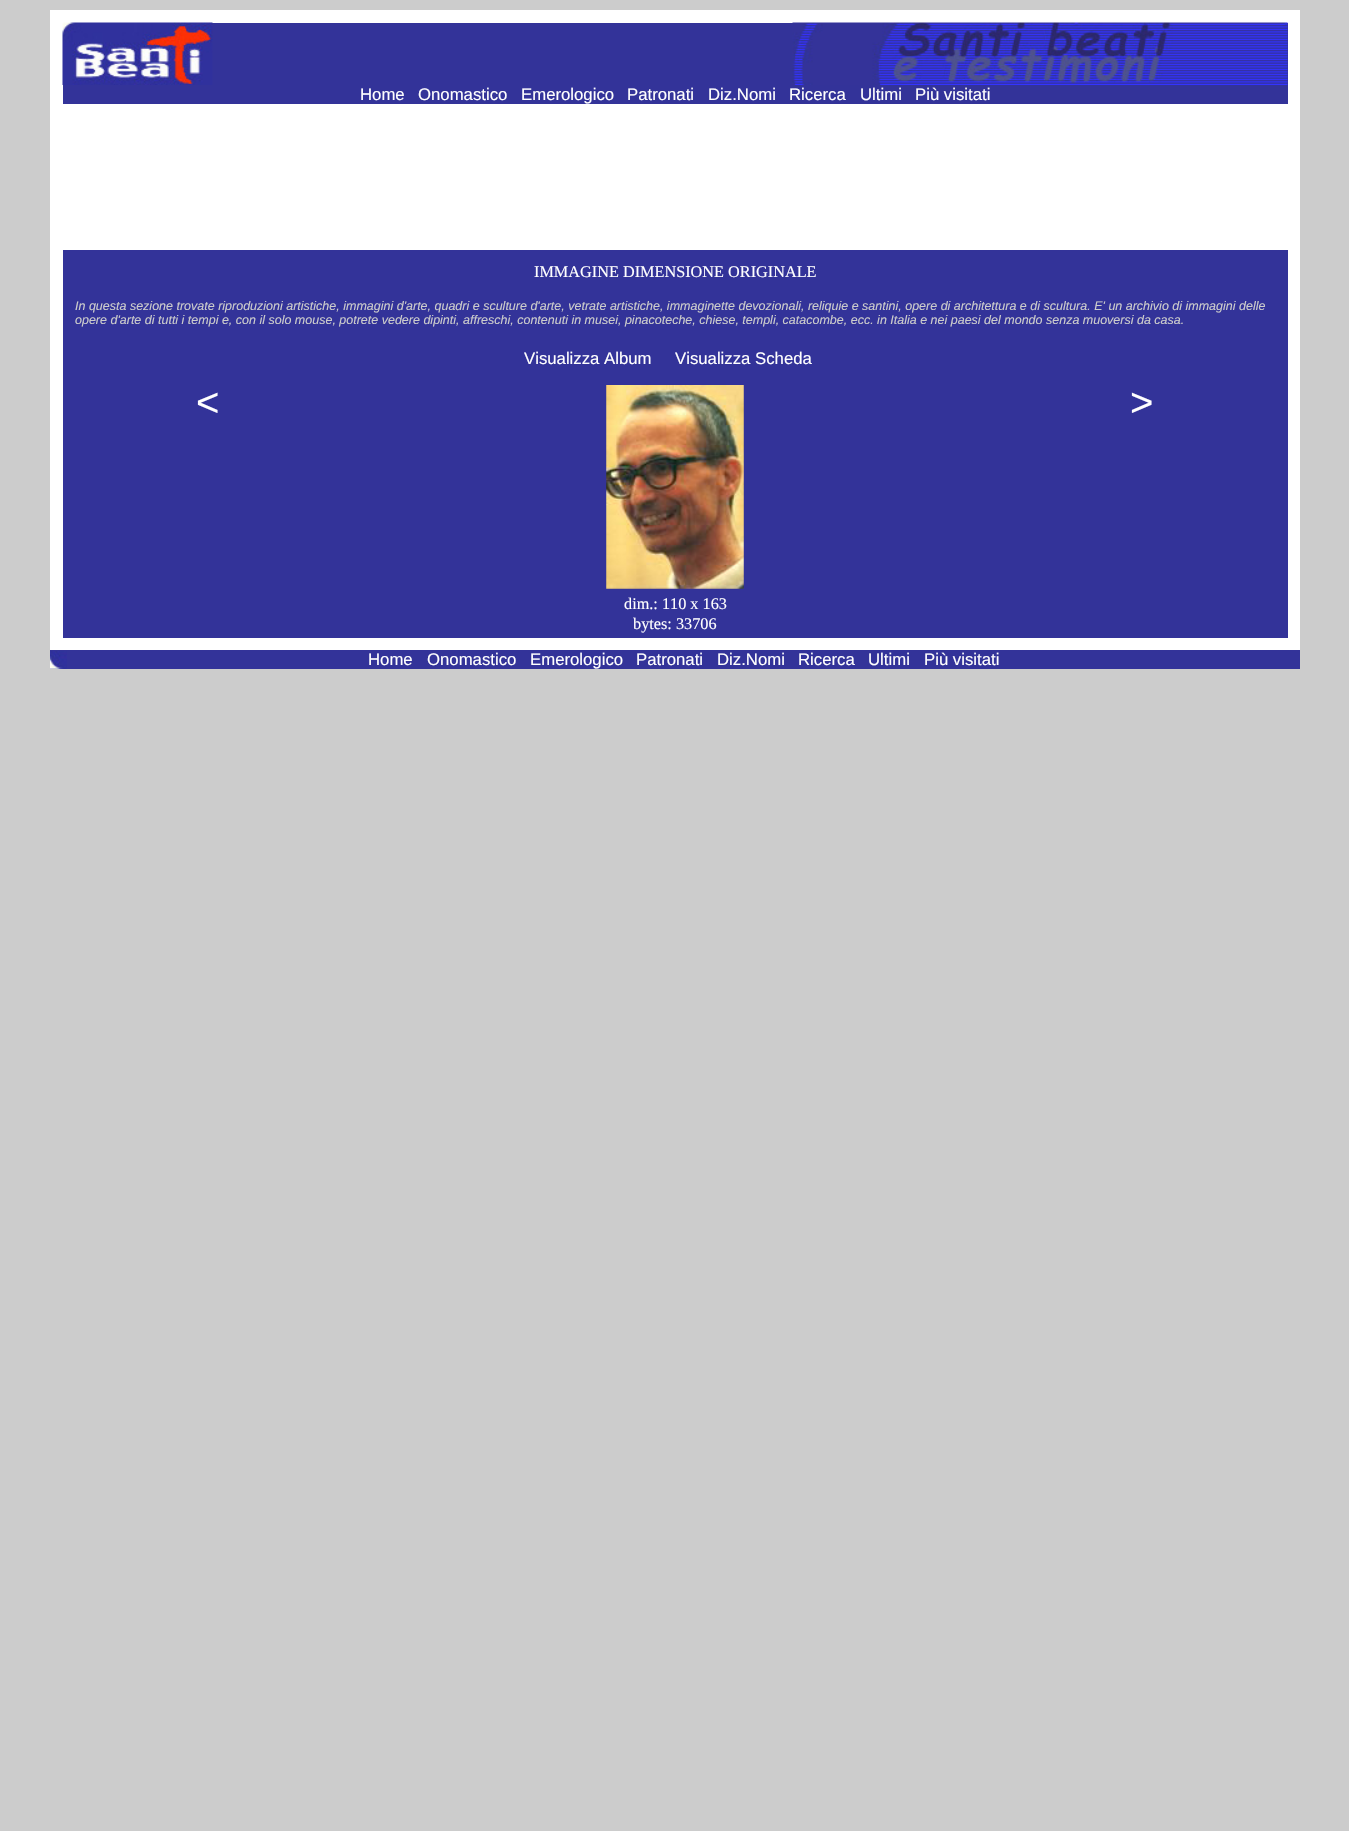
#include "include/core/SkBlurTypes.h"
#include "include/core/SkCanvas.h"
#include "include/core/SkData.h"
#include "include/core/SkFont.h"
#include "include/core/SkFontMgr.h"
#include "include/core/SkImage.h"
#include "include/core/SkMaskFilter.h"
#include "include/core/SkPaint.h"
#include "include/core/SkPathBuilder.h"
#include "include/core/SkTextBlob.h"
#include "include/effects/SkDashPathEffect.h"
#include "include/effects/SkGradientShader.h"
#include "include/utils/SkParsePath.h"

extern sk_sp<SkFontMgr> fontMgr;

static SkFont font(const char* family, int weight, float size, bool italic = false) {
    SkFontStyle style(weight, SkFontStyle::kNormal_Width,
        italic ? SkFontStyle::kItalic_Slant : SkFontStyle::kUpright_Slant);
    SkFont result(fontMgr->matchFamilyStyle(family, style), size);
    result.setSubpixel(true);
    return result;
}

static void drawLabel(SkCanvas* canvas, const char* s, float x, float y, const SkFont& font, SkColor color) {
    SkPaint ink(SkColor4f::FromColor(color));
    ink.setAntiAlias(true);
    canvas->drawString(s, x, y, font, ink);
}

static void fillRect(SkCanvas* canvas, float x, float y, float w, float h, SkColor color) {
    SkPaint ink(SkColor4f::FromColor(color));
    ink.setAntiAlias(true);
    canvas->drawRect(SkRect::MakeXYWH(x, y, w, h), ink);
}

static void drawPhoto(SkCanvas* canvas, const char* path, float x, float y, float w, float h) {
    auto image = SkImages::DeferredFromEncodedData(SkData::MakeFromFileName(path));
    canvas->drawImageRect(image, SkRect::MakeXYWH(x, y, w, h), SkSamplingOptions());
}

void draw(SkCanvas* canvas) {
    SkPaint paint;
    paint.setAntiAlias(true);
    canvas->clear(0xFFCCCCCC);
    fillRect(canvas, 50, 10, 1250, 640, 0xFFFFFFFF);
    fillRect(canvas, 212, 23, 1076, 62, 0xFF333399);
    drawPhoto(canvas, "assets/img1.png", 62, 22, 151, 63);
    drawPhoto(canvas, "assets/img2.png", 792, 22, 496, 63);
    fillRect(canvas, 63, 85, 1225, 19, 0xFF333399);
    SkFont font1 = font("Liberation Sans", 400, 16.75f);
    drawLabel(canvas, "Home", 360, 100, font1, 0xFFFFFFFF);
    drawLabel(canvas, "Onomastico", 418, 100, font1, 0xFFFFFFFF);
    drawLabel(canvas, "Emerologico", 521, 100, font1, 0xFFFFFFFF);
    drawLabel(canvas, "Patronati", 627, 100, font1, 0xFFFFFFFF);
    drawLabel(canvas, "Diz.Nomi", 708, 100, font1, 0xFFFFFFFF);
    drawLabel(canvas, "Ricerca", 789, 100, font1, 0xFFFFFFFF);
    drawLabel(canvas, "Ultimi", 860, 100, font1, 0xFFFFFFFF);
    drawLabel(canvas, "Più visitati", 915, 100, font1, 0xFFFFFFFF);
    fillRect(canvas, 63, 250, 1225, 388, 0xFF333399);
    SkFont font2 = font("Liberation Serif", 400, 16.25f);
    drawLabel(canvas, "IMMAGINE DIMENSIONE ORIGINALE", 534, 277, font2, 0xFFFFFFFF);
    SkFont font3 = font("Liberation Sans", 400, 12.5f, true);
    drawLabel(canvas, "In questa sezione trovate riproduzioni artistiche, immagini d'arte, quadri e sculture d'arte, vetrate artistiche, immaginette devozionali, reliquie e santini, opere di architettura e di scultura. E' un archivio di immagini delle", 75, 310, font3, 0xFFCCCCCC);
    drawLabel(canvas, "opere d'arte di tutti i tempi e, con il solo mouse, potrete vedere dipinti, affreschi, contenuti in musei, pinacoteche, chiese, templi, catacombe, ecc. in Italia e nei paesi del mondo senza muoversi da casa.", 75, 324, font3, 0xFFCCCCCC);
    drawLabel(canvas, "Visualizza Album", 524, 364, font1, 0xFFFFFFFF);
    drawLabel(canvas, "Visualizza Scheda", 675, 364, font1, 0xFFFFFFFF);
    SkFont font4 = font("Liberation Sans", 400, 40);
    drawLabel(canvas, "<", 196, 416, font4, 0xFFFFFFFF);
    drawLabel(canvas, ">", 1130, 416, font4, 0xFFFFFFFF);
    drawPhoto(canvas, "assets/img3.png", 606, 385, 138, 204);
    drawLabel(canvas, "dim.: 110 x 163", 624, 609, font2, 0xFFFFFFFF);
    drawLabel(canvas, "bytes: 33706", 633, 629, font2, 0xFFFFFFFF);
    fillRect(canvas, 50, 650, 1250, 19, 0xFF333399);
    drawPhoto(canvas, "assets/img4.png", 50, 651, 17, 18);
    drawLabel(canvas, "Home", 368, 665, font1, 0xFFFFFFFF);
    drawLabel(canvas, "Onomastico", 427, 665, font1, 0xFFFFFFFF);
    drawLabel(canvas, "Emerologico", 530, 665, font1, 0xFFFFFFFF);
    drawLabel(canvas, "Patronati", 636, 665, font1, 0xFFFFFFFF);
    drawLabel(canvas, "Diz.Nomi", 717, 665, font1, 0xFFFFFFFF);
    drawLabel(canvas, "Ricerca", 798, 665, font1, 0xFFFFFFFF);
    drawLabel(canvas, "Ultimi", 868, 665, font1, 0xFFFFFFFF);
    drawLabel(canvas, "Più visitati", 924, 665, font1, 0xFFFFFFFF);
}
